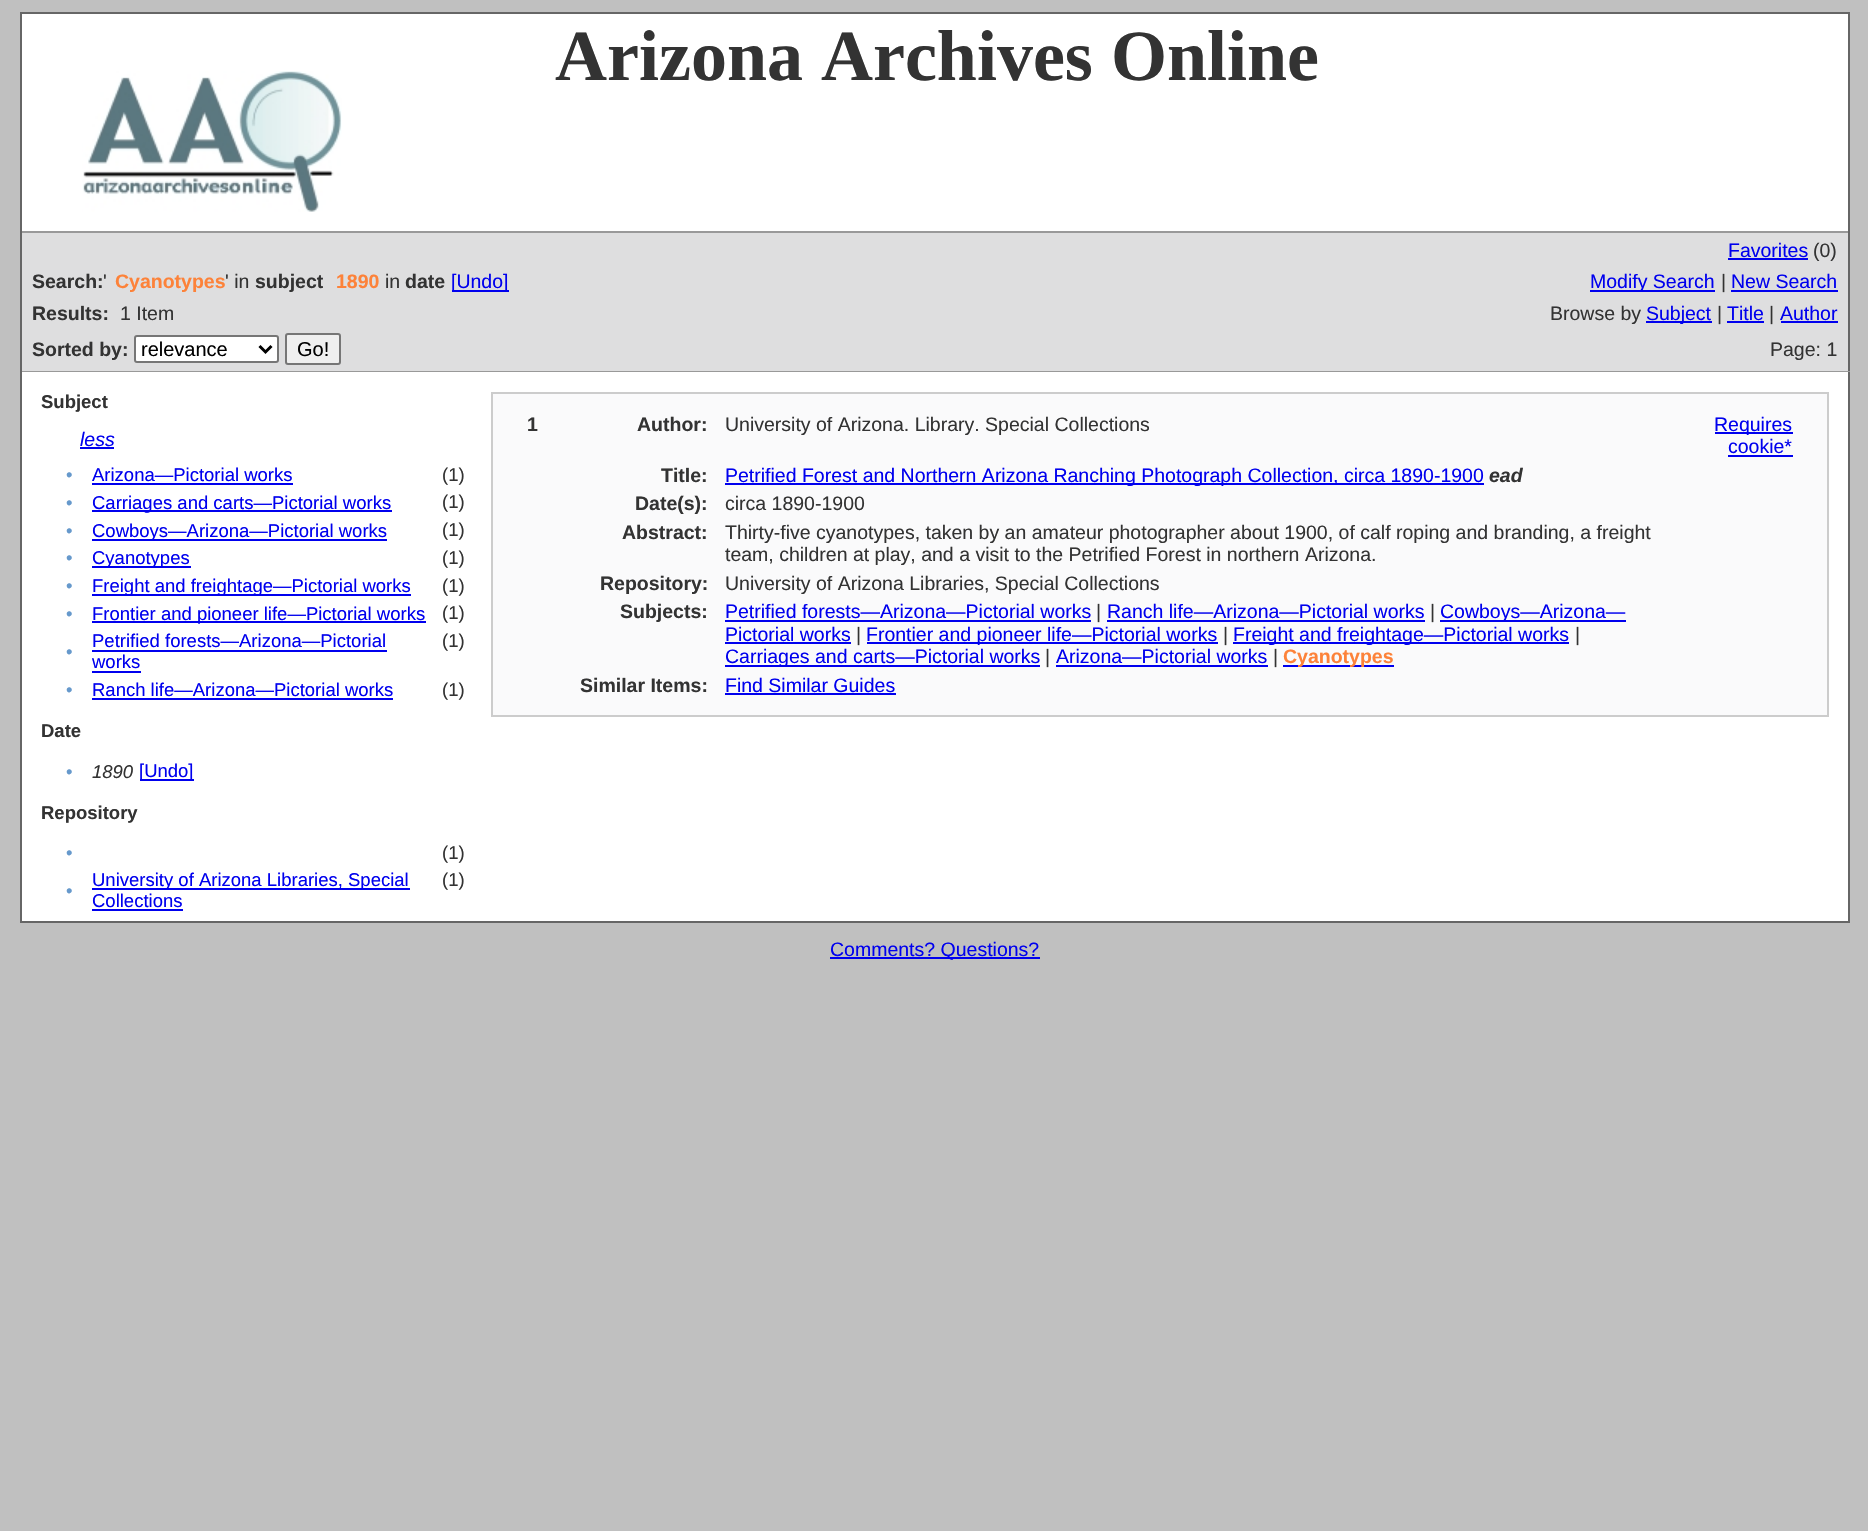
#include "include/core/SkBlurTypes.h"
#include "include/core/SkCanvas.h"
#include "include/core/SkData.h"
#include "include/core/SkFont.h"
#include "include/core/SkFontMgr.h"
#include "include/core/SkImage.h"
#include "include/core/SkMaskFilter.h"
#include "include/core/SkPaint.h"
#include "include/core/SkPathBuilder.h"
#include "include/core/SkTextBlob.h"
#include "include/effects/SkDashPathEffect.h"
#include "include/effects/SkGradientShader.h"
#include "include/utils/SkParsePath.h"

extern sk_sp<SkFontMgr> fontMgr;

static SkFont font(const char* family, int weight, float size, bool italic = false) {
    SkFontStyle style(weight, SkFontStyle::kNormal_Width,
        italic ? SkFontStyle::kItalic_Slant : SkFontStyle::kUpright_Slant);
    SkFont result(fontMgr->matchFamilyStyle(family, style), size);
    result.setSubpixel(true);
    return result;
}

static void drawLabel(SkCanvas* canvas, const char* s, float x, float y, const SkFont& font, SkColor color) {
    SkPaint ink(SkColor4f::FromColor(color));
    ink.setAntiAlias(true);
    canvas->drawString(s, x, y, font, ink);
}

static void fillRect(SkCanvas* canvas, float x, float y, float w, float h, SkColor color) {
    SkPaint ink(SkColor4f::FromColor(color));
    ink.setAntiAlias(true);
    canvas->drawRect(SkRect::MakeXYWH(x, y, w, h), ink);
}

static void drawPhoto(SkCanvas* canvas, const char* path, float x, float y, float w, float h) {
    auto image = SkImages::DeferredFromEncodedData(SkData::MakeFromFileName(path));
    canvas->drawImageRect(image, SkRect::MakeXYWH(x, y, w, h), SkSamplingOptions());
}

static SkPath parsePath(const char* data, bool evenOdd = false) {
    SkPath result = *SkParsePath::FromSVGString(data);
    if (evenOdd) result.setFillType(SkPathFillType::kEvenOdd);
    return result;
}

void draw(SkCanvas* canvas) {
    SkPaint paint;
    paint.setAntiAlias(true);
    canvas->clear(0xFFC0C0C0);
    fillRect(canvas, 22, 14, 1826, 217, 0xFFFFFFFF);
    fillRect(canvas, 20, 12, 1830, 2, 0xFF666666);
    fillRect(canvas, 1848, 12, 2, 219, 0xFF666666);
    fillRect(canvas, 20, 12, 2, 219, 0xFF666666);
    SkFont font1 = font("Liberation Serif", 700, 72);
    drawLabel(canvas, "Arizona Archives Online", 555, 80, font1, 0xFF333333);
    drawPhoto(canvas, "assets/img1.png", 82, 71, 260, 141);
    fillRect(canvas, 22, 233, 1826, 138, 0xFFDEDEDF);
    fillRect(canvas, 20, 231, 1830, 2, 0xFF999999);
    fillRect(canvas, 1848, 231, 2, 692, 0xFF666666);
    fillRect(canvas, 20, 371, 1830, 1, 0xFF999999);
    fillRect(canvas, 20, 231, 2, 141, 0xFF666666);
    SkFont font2 = font("Liberation Sans", 400, 19.5f);
    drawLabel(canvas, "Favorites", 1728, 257, font2, 0xFF0000EE);
    fillRect(canvas, 1728, 258, 80, 2, 0xFF0000EE);
    drawLabel(canvas, "(0)", 1813, 257, font2, 0xFF333333);
    SkFont font3 = font("Liberation Sans", 700, 19.5f);
    drawLabel(canvas, "Search:", 32, 288, font3, 0xFF333333);
    drawLabel(canvas, "'", 103, 288, font2, 0xFF333333);
    drawLabel(canvas, "Cyanotypes", 115, 288, font3, 0xFFFD8239);
    drawLabel(canvas, "' in", 225, 288, font2, 0xFF333333);
    drawLabel(canvas, "subject", 255, 288, font3, 0xFF333333);
    drawLabel(canvas, "1890", 336, 288, font3, 0xFFFD8239);
    drawLabel(canvas, "in", 385, 288, font2, 0xFF333333);
    drawLabel(canvas, "date", 405, 288, font3, 0xFF333333);
    fillRect(canvas, 452, 290, 57, 2, 0xFF0000EE);
    drawLabel(canvas, "[Undo]", 451, 288, font2, 0xFF0000EE);
    fillRect(canvas, 1590, 290, 125, 2, 0xFF0000EE);
    drawLabel(canvas, "Modify Search", 1590, 288, font2, 0xFF0000EE);
    drawLabel(canvas, "|", 1721, 288, font2, 0xFF333333);
    drawLabel(canvas, "New Search", 1731, 288, font2, 0xFF0000EE);
    fillRect(canvas, 1731, 290, 107, 2, 0xFF0000EE);
    drawLabel(canvas, "Results:", 32, 320, font3, 0xFF333333);
    drawLabel(canvas, "1 Item", 120, 320, font2, 0xFF333333);
    drawLabel(canvas, "Browse by", 1550, 320, font2, 0xFF333333);
    fillRect(canvas, 1646, 321, 66, 2, 0xFF0000EE);
    drawLabel(canvas, "Subject", 1646, 320, font2, 0xFF0000EE);
    drawLabel(canvas, "|", 1717, 320, font2, 0xFF333333);
    drawLabel(canvas, "Title", 1727, 320, font2, 0xFF0000EE);
    fillRect(canvas, 1727, 321, 37, 2, 0xFF0000EE);
    drawLabel(canvas, "|", 1769, 320, font2, 0xFF333333);
    drawLabel(canvas, "Author", 1780, 320, font2, 0xFF0000EE);
    fillRect(canvas, 1781, 321, 57, 2, 0xFF0000EE);
    drawLabel(canvas, "Sorted by:", 32, 356, font3, 0xFF333333);
    paint.setColor(0xFFFFFFFF);
    canvas->drawRoundRect(SkRect::MakeXYWH(135, 336, 143, 26), 2, 2, paint);
    paint.setStroke(true);
    paint.setStrokeWidth(2);
    paint.setColor(0xFF767676);
    canvas->drawRoundRect(SkRect::MakeXYWH(135, 336, 143, 26), 2, 2, paint);
    paint.setStrokeWidth(3);
    paint.setColor(0xFF000000);
    canvas->drawPath(parsePath("M259.5 346L265.5 352L271.5 346"), paint);
    SkFont font4 = font("Liberation Sans", 400, 20);
    drawLabel(canvas, "relevance", 141, 356, font4, 0xFF000000);
    paint.setStroke(false);
    paint.setColor(0xFFEFEFEF);
    canvas->drawRoundRect(SkRect::MakeXYWH(286, 334, 54, 30), 2, 2, paint);
    paint.setStroke(true);
    paint.setStrokeWidth(2);
    paint.setColor(0xFF767676);
    canvas->drawRoundRect(SkRect::MakeXYWH(286, 334, 54, 30), 2, 2, paint);
    drawLabel(canvas, "Go!", 297, 356, font4, 0xFF000000);
    drawLabel(canvas, "Page: 1", 1770, 356, font2, 0xFF333333);
    fillRect(canvas, 22, 372, 1826, 549, 0xFFFFFFFF);
    fillRect(canvas, 20, 921, 1830, 2, 0xFF666666);
    fillRect(canvas, 20, 372, 2, 551, 0xFF666666);
    SkFont font5 = font("Liberation Sans", 700, 18.5f);
    drawLabel(canvas, "Subject", 41, 408, font5, 0xFF333333);
    SkFont font6 = font("Liberation Sans", 400, 19.5f, true);
    drawLabel(canvas, "less", 80, 446, font6, 0xFF0000EE);
    fillRect(canvas, 80, 447, 34, 2, 0xFF0000EE);
    SkFont font7 = font("Liberation Sans", 400, 18.5f);
    drawLabel(canvas, "•", 66, 481, font7, 0xFF6699CC);
    drawLabel(canvas, "Arizona—Pictorial works", 92, 481, font7, 0xFF0000EE);
    fillRect(canvas, 92, 483, 201, 2, 0xFF0000EE);
    drawLabel(canvas, "(1)", 442, 481, font7, 0xFF333333);
    drawLabel(canvas, "•", 66, 509, font7, 0xFF6699CC);
    fillRect(canvas, 92, 510, 300, 2, 0xFF0000EE);
    drawLabel(canvas, "Carriages and carts—Pictorial works", 92, 509, font7, 0xFF0000EE);
    drawLabel(canvas, "(1)", 442, 508, font7, 0xFF333333);
    drawLabel(canvas, "•", 66, 537, font7, 0xFF6699CC);
    fillRect(canvas, 92, 539, 295, 2, 0xFF0000EE);
    drawLabel(canvas, "Cowboys—Arizona—Pictorial works", 92, 537, font7, 0xFF0000EE);
    drawLabel(canvas, "(1)", 442, 536, font7, 0xFF333333);
    drawLabel(canvas, "•", 66, 564, font7, 0xFF6699CC);
    fillRect(canvas, 92, 566, 99, 2, 0xFF0000EE);
    drawLabel(canvas, "Cyanotypes", 92, 564, font7, 0xFF0000EE);
    drawLabel(canvas, "(1)", 442, 564, font7, 0xFF333333);
    drawLabel(canvas, "•", 66, 592, font7, 0xFF6699CC);
    fillRect(canvas, 92, 594, 319, 2, 0xFF0000EE);
    drawLabel(canvas, "Freight and freightage—Pictorial works", 92, 592, font7, 0xFF0000EE);
    drawLabel(canvas, "(1)", 442, 592, font7, 0xFF333333);
    drawLabel(canvas, "•", 66, 620, font7, 0xFF6699CC);
    fillRect(canvas, 92, 621, 334, 2, 0xFF0000EE);
    drawLabel(canvas, "Frontier and pioneer life—Pictorial works", 92, 620, font7, 0xFF0000EE);
    drawLabel(canvas, "(1)", 442, 619, font7, 0xFF333333);
    drawLabel(canvas, "Petrified forests—Arizona—Pictorial", 92, 647, font7, 0xFF0000EE);
    fillRect(canvas, 92, 650, 295, 2, 0xFF0000EE);
    drawLabel(canvas, "works", 92, 668, font7, 0xFF0000EE);
    fillRect(canvas, 92, 671, 49, 2, 0xFF0000EE);
    drawLabel(canvas, "(1)", 442, 647, font7, 0xFF333333);
    drawLabel(canvas, "•", 66, 658, font7, 0xFF6699CC);
    drawLabel(canvas, "•", 66, 696, font7, 0xFF6699CC);
    drawLabel(canvas, "Ranch life—Arizona—Pictorial works", 92, 696, font7, 0xFF0000EE);
    fillRect(canvas, 92, 698, 301, 2, 0xFF0000EE);
    drawLabel(canvas, "(1)", 442, 696, font7, 0xFF333333);
    drawLabel(canvas, "Date", 41, 737, font5, 0xFF333333);
    drawLabel(canvas, "•", 66, 778, font7, 0xFF6699CC);
    SkFont font8 = font("Liberation Sans", 400, 18.5f, true);
    drawLabel(canvas, "1890", 92, 778, font8, 0xFF333333);
    fillRect(canvas, 140, 779, 54, 2, 0xFF0000EE);
    drawLabel(canvas, "[Undo]", 139, 777, font7, 0xFF0000EE);
    drawLabel(canvas, "Repository", 41, 819, font5, 0xFF333333);
    drawLabel(canvas, "•", 66, 859, font7, 0xFF6699CC);
    drawLabel(canvas, "(1)", 442, 859, font7, 0xFF333333);
    fillRect(canvas, 92, 888, 318, 2, 0xFF0000EE);
    drawLabel(canvas, "University of Arizona Libraries, Special", 92, 886, font7, 0xFF0000EE);
    drawLabel(canvas, "Collections", 92, 907, font7, 0xFF0000EE);
    fillRect(canvas, 92, 909, 91, 2, 0xFF0000EE);
    drawLabel(canvas, "(1)", 442, 886, font7, 0xFF333333);
    drawLabel(canvas, "•", 66, 897, font7, 0xFF6699CC);
    paint.setStroke(false);
    paint.setColor(0xFFFAFAFB);
    canvas->drawRect(SkRect::MakeXYWH(492, 393, 1336, 323), paint);
    paint.setStroke(true);
    paint.setColor(0xFFCCCCCC);
    canvas->drawRect(SkRect::MakeXYWH(492, 393, 1336, 323), paint);
    drawLabel(canvas, "1", 527, 431, font3, 0xFF333333);
    drawLabel(canvas, "Author:", 637, 431, font3, 0xFF333333);
    drawLabel(canvas, "University of Arizona. Library. Special Collections", 725, 431, font2, 0xFF333333);
    fillRect(canvas, 1715, 432, 78, 2, 0xFF0000EE);
    drawLabel(canvas, "Requires", 1714, 431, font2, 0xFF0000EE);
    drawLabel(canvas, "cookie*", 1728, 453, font2, 0xFF0000EE);
    fillRect(canvas, 1728, 455, 65, 2, 0xFF0000EE);
    drawLabel(canvas, "Title:", 661, 482, font3, 0xFF333333);
    fillRect(canvas, 725, 483, 759, 2, 0xFF0000EE);
    drawLabel(canvas, "Petrified Forest and Northern Arizona Ranching Photograph Collection, circa 1890-1900", 725, 482, font2, 0xFF0000EE);
    SkFont font9 = font("Liberation Sans", 700, 19.5f, true);
    drawLabel(canvas, "ead", 1489, 482, font9, 0xFF333333);
    drawLabel(canvas, "Date(s):", 635, 510, font3, 0xFF333333);
    drawLabel(canvas, "circa 1890-1900", 725, 510, font2, 0xFF333333);
    drawLabel(canvas, "Abstract:", 622, 539, font3, 0xFF333333);
    drawLabel(canvas, "Thirty-five cyanotypes, taken by an amateur photographer about 1900, of calf roping and branding, a freight", 725, 539, font2, 0xFF333333);
    drawLabel(canvas, "team, children at play, and a visit to the Petrified Forest in northern Arizona.", 725, 561, font2, 0xFF333333);
    drawLabel(canvas, "Repository:", 600, 590, font3, 0xFF333333);
    drawLabel(canvas, "University of Arizona Libraries, Special Collections", 725, 590, font2, 0xFF333333);
    drawLabel(canvas, "Subjects:", 620, 618, font3, 0xFF333333);
    drawLabel(canvas, "Petrified forests—Arizona—Pictorial works", 725, 618, font2, 0xFF0000EE);
    fillRect(canvas, 725, 620, 366, 2, 0xFF0000EE);
    drawLabel(canvas, "|", 1096, 618, font2, 0xFF333333);
    drawLabel(canvas, "Ranch life—Arizona—Pictorial works", 1107, 618, font2, 0xFF0000EE);
    fillRect(canvas, 1107, 620, 318, 2, 0xFF0000EE);
    drawLabel(canvas, "|", 1430, 618, font2, 0xFF333333);
    fillRect(canvas, 1440, 620, 186, 2, 0xFF0000EE);
    drawLabel(canvas, "Cowboys—Arizona—", 1440, 618, font2, 0xFF0000EE);
    drawLabel(canvas, "Pictorial works", 725, 641, font2, 0xFF0000EE);
    fillRect(canvas, 725, 642, 126, 2, 0xFF0000EE);
    drawLabel(canvas, "|", 856, 641, font2, 0xFF333333);
    fillRect(canvas, 867, 642, 351, 2, 0xFF0000EE);
    drawLabel(canvas, "Frontier and pioneer life—Pictorial works", 866, 641, font2, 0xFF0000EE);
    drawLabel(canvas, "|", 1223, 641, font2, 0xFF333333);
    fillRect(canvas, 1233, 642, 336, 2, 0xFF0000EE);
    drawLabel(canvas, "Freight and freightage—Pictorial works", 1233, 641, font2, 0xFF0000EE);
    drawLabel(canvas, "|", 1575, 641, font2, 0xFF333333);
    fillRect(canvas, 725, 665, 315, 2, 0xFF0000EE);
    drawLabel(canvas, "Carriages and carts—Pictorial works", 725, 663, font2, 0xFF0000EE);
    drawLabel(canvas, "|", 1045, 663, font2, 0xFF333333);
    drawLabel(canvas, "Arizona—Pictorial works", 1056, 663, font2, 0xFF0000EE);
    fillRect(canvas, 1056, 665, 212, 2, 0xFF0000EE);
    drawLabel(canvas, "|", 1273, 663, font2, 0xFF333333);
    fillRect(canvas, 1283, 665, 111, 2, 0xFF0000EE);
    drawLabel(canvas, "Cyanotypes", 1283, 663, font3, 0xFFFD8239);
    drawLabel(canvas, "Similar Items:", 580, 692, font3, 0xFF333333);
    drawLabel(canvas, "Find Similar Guides", 725, 692, font2, 0xFF0000EE);
    fillRect(canvas, 725, 693, 171, 2, 0xFF0000EE);
    fillRect(canvas, 830, 957, 210, 2, 0xFF0000EE);
    drawLabel(canvas, "Comments? Questions?", 830, 956, font2, 0xFF0000EE);
}
